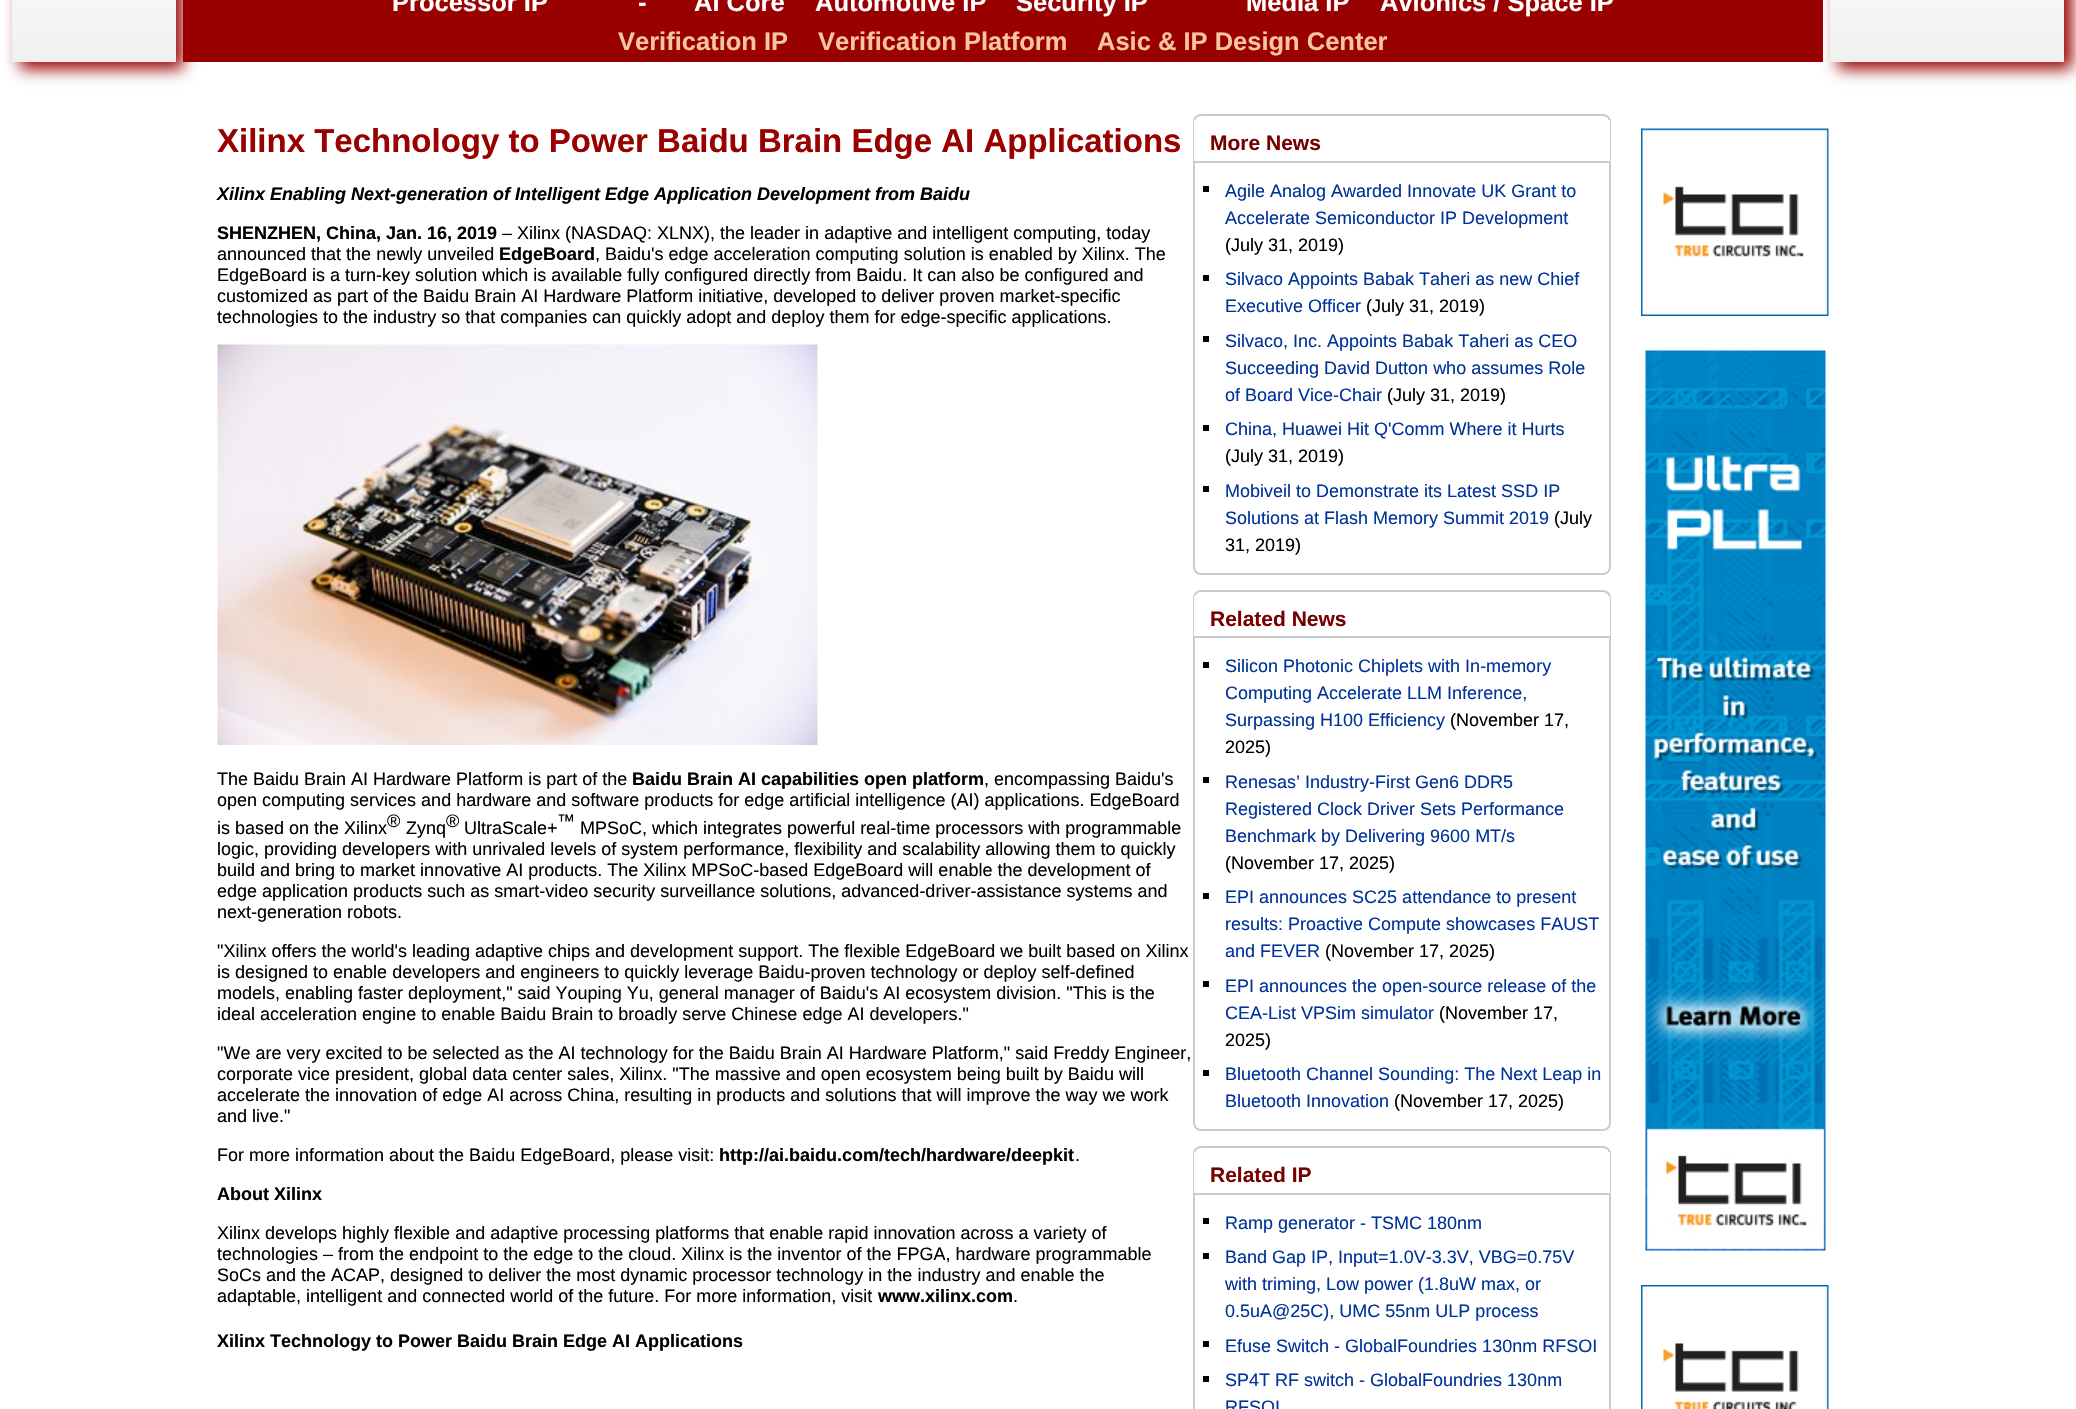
#include "include/core/SkBlurTypes.h"
#include "include/core/SkCanvas.h"
#include "include/core/SkData.h"
#include "include/core/SkFont.h"
#include "include/core/SkFontMgr.h"
#include "include/core/SkImage.h"
#include "include/core/SkMaskFilter.h"
#include "include/core/SkPaint.h"
#include "include/core/SkPathBuilder.h"
#include "include/core/SkTextBlob.h"
#include "include/effects/SkDashPathEffect.h"
#include "include/effects/SkGradientShader.h"
#include "include/utils/SkParsePath.h"

extern sk_sp<SkFontMgr> fontMgr;

static SkFont font(const char* family, int weight, float size, bool italic = false) {
    SkFontStyle style(weight, SkFontStyle::kNormal_Width,
        italic ? SkFontStyle::kItalic_Slant : SkFontStyle::kUpright_Slant);
    SkFont result(fontMgr->matchFamilyStyle(family, style), size);
    result.setSubpixel(true);
    return result;
}

static void drawLabel(SkCanvas* canvas, const char* s, float x, float y, const SkFont& font, SkColor color) {
    SkPaint ink(SkColor4f::FromColor(color));
    ink.setAntiAlias(true);
    canvas->drawString(s, x, y, font, ink);
}

static void fillRect(SkCanvas* canvas, float x, float y, float w, float h, SkColor color) {
    SkPaint ink(SkColor4f::FromColor(color));
    ink.setAntiAlias(true);
    canvas->drawRect(SkRect::MakeXYWH(x, y, w, h), ink);
}

static void drawPhoto(SkCanvas* canvas, const char* path, float x, float y, float w, float h) {
    auto image = SkImages::DeferredFromEncodedData(SkData::MakeFromFileName(path));
    canvas->drawImageRect(image, SkRect::MakeXYWH(x, y, w, h), SkSamplingOptions());
}

void draw(SkCanvas* canvas) {
    SkPaint paint;
    paint.setAntiAlias(true);
    canvas->clear(0xFFFFFFFF);
    paint.setColor(0xFF990000);
    paint.setMaskFilter(SkMaskFilter::MakeBlur(kNormal_SkBlurStyle, 7.5f));
    canvas->drawRect(SkRect::MakeXYWH(20, -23, 163, 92), paint);
    paint.setMaskFilter(nullptr);
    {
        const SkColor colors[] = {0xFFFFFFFF, 0xFFF0F0F0};
        const float stops[] = {0, 1};
        const SkPoint ends[] = {{94, -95}, {94, 62}};
        paint.setShader(SkGradientShader::MakeLinear(ends, colors, stops, 2, SkTileMode::kClamp));
        paint.setAlpha(255);
    }
    canvas->drawRect(SkRect::MakeXYWH(12, 0, 164, 62), paint);
    fillRect(canvas, 183, 0, 1640, 62, 0xFF990000);
    SkFont font1 = font("Liberation Sans", 700, 25.5f);
    drawLabel(canvas, "Processor IP", 392, 11, font1, 0xFFFFFFFF);
    drawLabel(canvas, "-", 638, 11, font1, 0xFFFFFFFF);
    drawLabel(canvas, "AI Core", 694, 11, font1, 0xFFFFFFFF);
    drawLabel(canvas, "Automotive IP", 815, 11, font1, 0xFFFFFFFF);
    drawLabel(canvas, "Security IP", 1016, 11, font1, 0xFFFFFFFF);
    drawLabel(canvas, "Media IP", 1246, 11, font1, 0xFFFFFFFF);
    drawLabel(canvas, "Avionics / Space IP", 1380, 11, font1, 0xFFFFFFFF);
    drawLabel(canvas, "Verification IP", 618, 50, font1, 0xFFF7C59F);
    drawLabel(canvas, "Verification Platform", 818, 50, font1, 0xFFF7C59F);
    drawLabel(canvas, "Asic & IP Design Center", 1097, 50, font1, 0xFFF7C59F);
    paint.setShader(nullptr);
    paint.setColor(0xFF990000);
    paint.setMaskFilter(SkMaskFilter::MakeBlur(kNormal_SkBlurStyle, 7.5f));
    canvas->drawRect(SkRect::MakeXYWH(1838, -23, 234, 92), paint);
    paint.setMaskFilter(nullptr);
    {
        const SkColor colors[] = {0xFFFFFFFF, 0xFFF0F0F0};
        const float stops[] = {0, 1};
        const SkPoint ends[] = {{1947, -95}, {1947, 62}};
        paint.setShader(SkGradientShader::MakeLinear(ends, colors, stops, 2, SkTileMode::kClamp));
        paint.setAlpha(255);
    }
    canvas->drawRect(SkRect::MakeXYWH(1830, 0, 234, 62), paint);
    SkFont font2 = font("Liberation Sans", 700, 33);
    drawLabel(canvas, "Xilinx Technology to Power Baidu Brain Edge AI Applications", 217, 152, font2, 0xFF990000);
    SkFont font3 = font("Liberation Sans", 700, 18, true);
    drawLabel(canvas, "Xilinx Enabling Next-generation of Intelligent Edge Application Development from Baidu", 217, 200, font3, 0xFF000000);
    SkFont font4 = font("Liberation Sans", 700, 18);
    drawLabel(canvas, "SHENZHEN, China, Jan. 16, 2019", 217, 239, font4, 0xFF000000);
    SkFont font5 = font("Liberation Sans", 400, 18);
    drawLabel(canvas, "– Xilinx (NASDAQ: XLNX), the leader in adaptive and intelligent computing, today", 502, 239, font5, 0xFF000000);
    drawLabel(canvas, "announced that the newly unveiled", 217, 260, font5, 0xFF000000);
    drawLabel(canvas, "EdgeBoard", 499, 260, font4, 0xFF000000);
    drawLabel(canvas, ", Baidu's edge acceleration computing solution is enabled by Xilinx. The", 595, 260, font5, 0xFF000000);
    drawLabel(canvas, "EdgeBoard is a turn-key solution which is available fully configured directly from Baidu. It can also be configured and", 217, 281, font5, 0xFF000000);
    drawLabel(canvas, "customized as part of the Baidu Brain AI Hardware Platform initiative, developed to deliver proven market-specific", 217, 302, font5, 0xFF000000);
    drawLabel(canvas, "technologies to the industry so that companies can quickly adopt and deploy them for edge-specific applications.", 217, 323, font5, 0xFF000000);
    drawPhoto(canvas, "assets/img1.png", 217, 344, 601, 401);
    drawLabel(canvas, "The Baidu Brain AI Hardware Platform is part of the", 217, 785, font5, 0xFF000000);
    drawLabel(canvas, "Baidu Brain AI capabilities open platform", 632, 785, font4, 0xFF000000);
    drawLabel(canvas, ", encompassing Baidu's", 984, 785, font5, 0xFF000000);
    drawLabel(canvas, "open computing services and hardware and software products for edge artificial intelligence (AI) applications. EdgeBoard", 217, 806, font5, 0xFF000000);
    drawLabel(canvas, "is based on the Xilinx", 217, 834, font5, 0xFF000000);
    drawLabel(canvas, "®", 387, 827, font5, 0xFF000000);
    drawLabel(canvas, "®", 446, 827, font5, 0xFF000000);
    drawLabel(canvas, "™", 557, 827, font5, 0xFF000000);
    drawLabel(canvas, "Zynq", 406, 834, font5, 0xFF000000);
    drawLabel(canvas, "UltraScale+", 464, 834, font5, 0xFF000000);
    drawLabel(canvas, "MPSoC, which integrates powerful real-time processors with programmable", 580, 834, font5, 0xFF000000);
    drawLabel(canvas, "logic, providing developers with unrivaled levels of system performance, flexibility and scalability allowing them to quickly", 217, 855, font5, 0xFF000000);
    drawLabel(canvas, "build and bring to market innovative AI products. The Xilinx MPSoC-based EdgeBoard will enable the development of", 217, 876, font5, 0xFF000000);
    drawLabel(canvas, "edge application products such as smart-video security surveillance solutions, advanced-driver-assistance systems and", 217, 897, font5, 0xFF000000);
    drawLabel(canvas, "next-generation robots.", 217, 918, font5, 0xFF000000);
    drawLabel(canvas, "\"Xilinx offers the world's leading adaptive chips and development support. The flexible EdgeBoard we built based on Xilinx", 217, 957, font5, 0xFF000000);
    drawLabel(canvas, "is designed to enable developers and engineers to quickly leverage Baidu-proven technology or deploy self-defined", 217, 978, font5, 0xFF000000);
    drawLabel(canvas, "models, enabling faster deployment,\" said Youping Yu, general manager of Baidu's AI ecosystem division. \"This is the", 217, 999, font5, 0xFF000000);
    drawLabel(canvas, "ideal acceleration engine to enable Baidu Brain to broadly serve Chinese edge AI developers.\"", 217, 1020, font5, 0xFF000000);
    drawLabel(canvas, "\"We are very excited to be selected as the AI technology for the Baidu Brain AI Hardware Platform,\" said Freddy Engineer,", 217, 1059, font5, 0xFF000000);
    drawLabel(canvas, "corporate vice president, global data center sales, Xilinx. \"The massive and open ecosystem being built by Baidu will", 217, 1080, font5, 0xFF000000);
    drawLabel(canvas, "accelerate the innovation of edge AI across China, resulting in products and solutions that will improve the way we work", 217, 1101, font5, 0xFF000000);
    drawLabel(canvas, "and live.\"", 217, 1122, font5, 0xFF000000);
    drawLabel(canvas, "For more information about the Baidu EdgeBoard, please visit:", 217, 1161, font5, 0xFF000000);
    drawLabel(canvas, "http://ai.baidu.com/tech/hardware/deepkit", 719, 1161, font4, 0xFF000000);
    drawLabel(canvas, ".", 1075, 1161, font5, 0xFF000000);
    drawLabel(canvas, "About Xilinx", 217, 1200, font4, 0xFF000000);
    drawLabel(canvas, "Xilinx develops highly flexible and adaptive processing platforms that enable rapid innovation across a variety of", 217, 1239, font5, 0xFF000000);
    drawLabel(canvas, "technologies – from the endpoint to the edge to the cloud. Xilinx is the inventor of the FPGA, hardware programmable", 217, 1260, font5, 0xFF000000);
    drawLabel(canvas, "SoCs and the ACAP, designed to deliver the most dynamic processor technology in the industry and enable the", 217, 1281, font5, 0xFF000000);
    drawLabel(canvas, "adaptable, intelligent and connected world of the future. For more information, visit", 217, 1302, font5, 0xFF000000);
    drawLabel(canvas, "www.xilinx.com", 878, 1302, font4, 0xFF000000);
    drawLabel(canvas, ".", 1013, 1302, font5, 0xFF000000);
    drawLabel(canvas, "Xilinx Technology to Power Baidu Brain Edge AI Applications", 217, 1347, font4, 0xFF000000);
    paint.setStroke(true);
    paint.setStrokeWidth(2);
    paint.setShader(nullptr);
    paint.setColor(0xFFCCCCCC);
    canvas->drawRoundRect(SkRect::MakeXYWH(1194, 115, 416, 459), 7, 7, paint);
    fillRect(canvas, 1194, 120, 416, 41, 0xFFFFFFFF);
    fillRect(canvas, 1194, 161, 416, 2, 0xFFCCCCCC);
    SkFont font6 = font("Liberation Sans", 700, 21);
    drawLabel(canvas, "More News", 1210, 150, font6, 0xFF770000);
    fillRect(canvas, 1203, 186, 6, 6, 0xFF000000);
    drawLabel(canvas, "Agile Analog Awarded Innovate UK Grant to", 1225, 197, font5, 0xFF003399);
    drawLabel(canvas, "Accelerate Semiconductor IP Development", 1225, 224, font5, 0xFF003399);
    drawLabel(canvas, "(July 31, 2019)", 1225, 251, font5, 0xFF000000);
    fillRect(canvas, 1203, 275, 6, 6, 0xFF000000);
    drawLabel(canvas, "Silvaco Appoints Babak Taheri as new Chief", 1225, 285, font5, 0xFF003399);
    drawLabel(canvas, "Executive Officer", 1225, 312, font5, 0xFF003399);
    drawLabel(canvas, "(July 31, 2019)", 1366, 312, font5, 0xFF000000);
    fillRect(canvas, 1203, 336, 6, 6, 0xFF000000);
    drawLabel(canvas, "Silvaco, Inc. Appoints Babak Taheri as CEO", 1225, 347, font5, 0xFF003399);
    drawLabel(canvas, "Succeeding David Dutton who assumes Role", 1225, 374, font5, 0xFF003399);
    drawLabel(canvas, "of Board Vice-Chair", 1225, 401, font5, 0xFF003399);
    drawLabel(canvas, "(July 31, 2019)", 1387, 401, font5, 0xFF000000);
    fillRect(canvas, 1203, 425, 6, 6, 0xFF000000);
    drawLabel(canvas, "China, Huawei Hit Q'Comm Where it Hurts", 1225, 435, font5, 0xFF003399);
    drawLabel(canvas, "(July 31, 2019)", 1225, 462, font5, 0xFF000000);
    fillRect(canvas, 1203, 486, 6, 6, 0xFF000000);
    drawLabel(canvas, "Mobiveil to Demonstrate its Latest SSD IP", 1225, 497, font5, 0xFF003399);
    drawLabel(canvas, "Solutions at Flash Memory Summit 2019", 1225, 524, font5, 0xFF003399);
    drawLabel(canvas, "(July", 1554, 524, font5, 0xFF000000);
    drawLabel(canvas, "31, 2019)", 1225, 551, font5, 0xFF000000);
    canvas->drawRoundRect(SkRect::MakeXYWH(1194, 591, 416, 539), 7, 7, paint);
    fillRect(canvas, 1194, 596, 416, 40, 0xFFFFFFFF);
    fillRect(canvas, 1194, 636, 416, 2, 0xFFCCCCCC);
    drawLabel(canvas, "Related News", 1210, 626, font6, 0xFF770000);
    fillRect(canvas, 1203, 662, 6, 6, 0xFF000000);
    drawLabel(canvas, "Silicon Photonic Chiplets with In-memory", 1225, 672, font5, 0xFF003399);
    drawLabel(canvas, "Computing Accelerate LLM Inference,", 1225, 699, font5, 0xFF003399);
    drawLabel(canvas, "Surpassing H100 Efficiency", 1225, 726, font5, 0xFF003399);
    drawLabel(canvas, "(November 17,", 1450, 726, font5, 0xFF000000);
    drawLabel(canvas, "2025)", 1225, 753, font5, 0xFF000000);
    fillRect(canvas, 1203, 777, 6, 6, 0xFF000000);
    drawLabel(canvas, "Renesas’ Industry-First Gen6 DDR5", 1225, 788, font5, 0xFF003399);
    drawLabel(canvas, "Registered Clock Driver Sets Performance", 1225, 815, font5, 0xFF003399);
    drawLabel(canvas, "Benchmark by Delivering 9600 MT/s", 1225, 842, font5, 0xFF003399);
    drawLabel(canvas, "(November 17, 2025)", 1225, 869, font5, 0xFF000000);
    fillRect(canvas, 1203, 893, 6, 6, 0xFF000000);
    drawLabel(canvas, "EPI announces SC25 attendance to present", 1225, 903, font5, 0xFF003399);
    drawLabel(canvas, "results: Proactive Compute showcases FAUST", 1225, 930, font5, 0xFF003399);
    drawLabel(canvas, "and FEVER", 1225, 957, font5, 0xFF003399);
    drawLabel(canvas, "(November 17, 2025)", 1325, 957, font5, 0xFF000000);
    fillRect(canvas, 1203, 981, 6, 6, 0xFF000000);
    drawLabel(canvas, "EPI announces the open-source release of the", 1225, 992, font5, 0xFF003399);
    drawLabel(canvas, "CEA-List VPSim simulator", 1225, 1019, font5, 0xFF003399);
    drawLabel(canvas, "(November 17,", 1439, 1019, font5, 0xFF000000);
    drawLabel(canvas, "2025)", 1225, 1046, font5, 0xFF000000);
    fillRect(canvas, 1203, 1070, 6, 6, 0xFF000000);
    drawLabel(canvas, "Bluetooth Channel Sounding: The Next Leap in", 1225, 1080, font5, 0xFF003399);
    drawLabel(canvas, "Bluetooth Innovation", 1225, 1107, font5, 0xFF003399);
    drawLabel(canvas, "(November 17, 2025)", 1394, 1107, font5, 0xFF000000);
    canvas->drawRoundRect(SkRect::MakeXYWH(1194, 1147, 416, 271), 7, 7, paint);
    fillRect(canvas, 1194, 1152, 416, 41, 0xFFFFFFFF);
    fillRect(canvas, 1194, 1193, 416, 2, 0xFFCCCCCC);
    drawLabel(canvas, "Related IP", 1210, 1182, font6, 0xFF770000);
    fillRect(canvas, 1203, 1218, 6, 6, 0xFF000000);
    drawLabel(canvas, "Ramp generator - TSMC 180nm", 1225, 1229, font5, 0xFF003399);
    fillRect(canvas, 1203, 1253, 6, 6, 0xFF000000);
    drawLabel(canvas, "Band Gap IP, Input=1.0V-3.3V, VBG=0.75V", 1225, 1263, font5, 0xFF003399);
    drawLabel(canvas, "with triming, Low power (1.8uW max, or", 1225, 1290, font5, 0xFF003399);
    drawLabel(canvas, "0.5uA@25C), UMC 55nm ULP process", 1225, 1317, font5, 0xFF003399);
    fillRect(canvas, 1203, 1341, 6, 6, 0xFF000000);
    drawLabel(canvas, "Efuse Switch - GlobalFoundries 130nm RFSOI", 1225, 1352, font5, 0xFF003399);
    fillRect(canvas, 1203, 1376, 6, 6, 0xFF000000);
    drawLabel(canvas, "SP4T RF switch - GlobalFoundries 130nm", 1225, 1386, font5, 0xFF003399);
    drawLabel(canvas, "RFSOI", 1225, 1413, font5, 0xFF003399);
    drawPhoto(canvas, "assets/img2.png", 1641, 128, 188, 188);
    drawPhoto(canvas, "assets/img3.png", 1645, 350, 181, 901);
    drawPhoto(canvas, "assets/img4.png", 1641, 1285, 188, 124);
}
